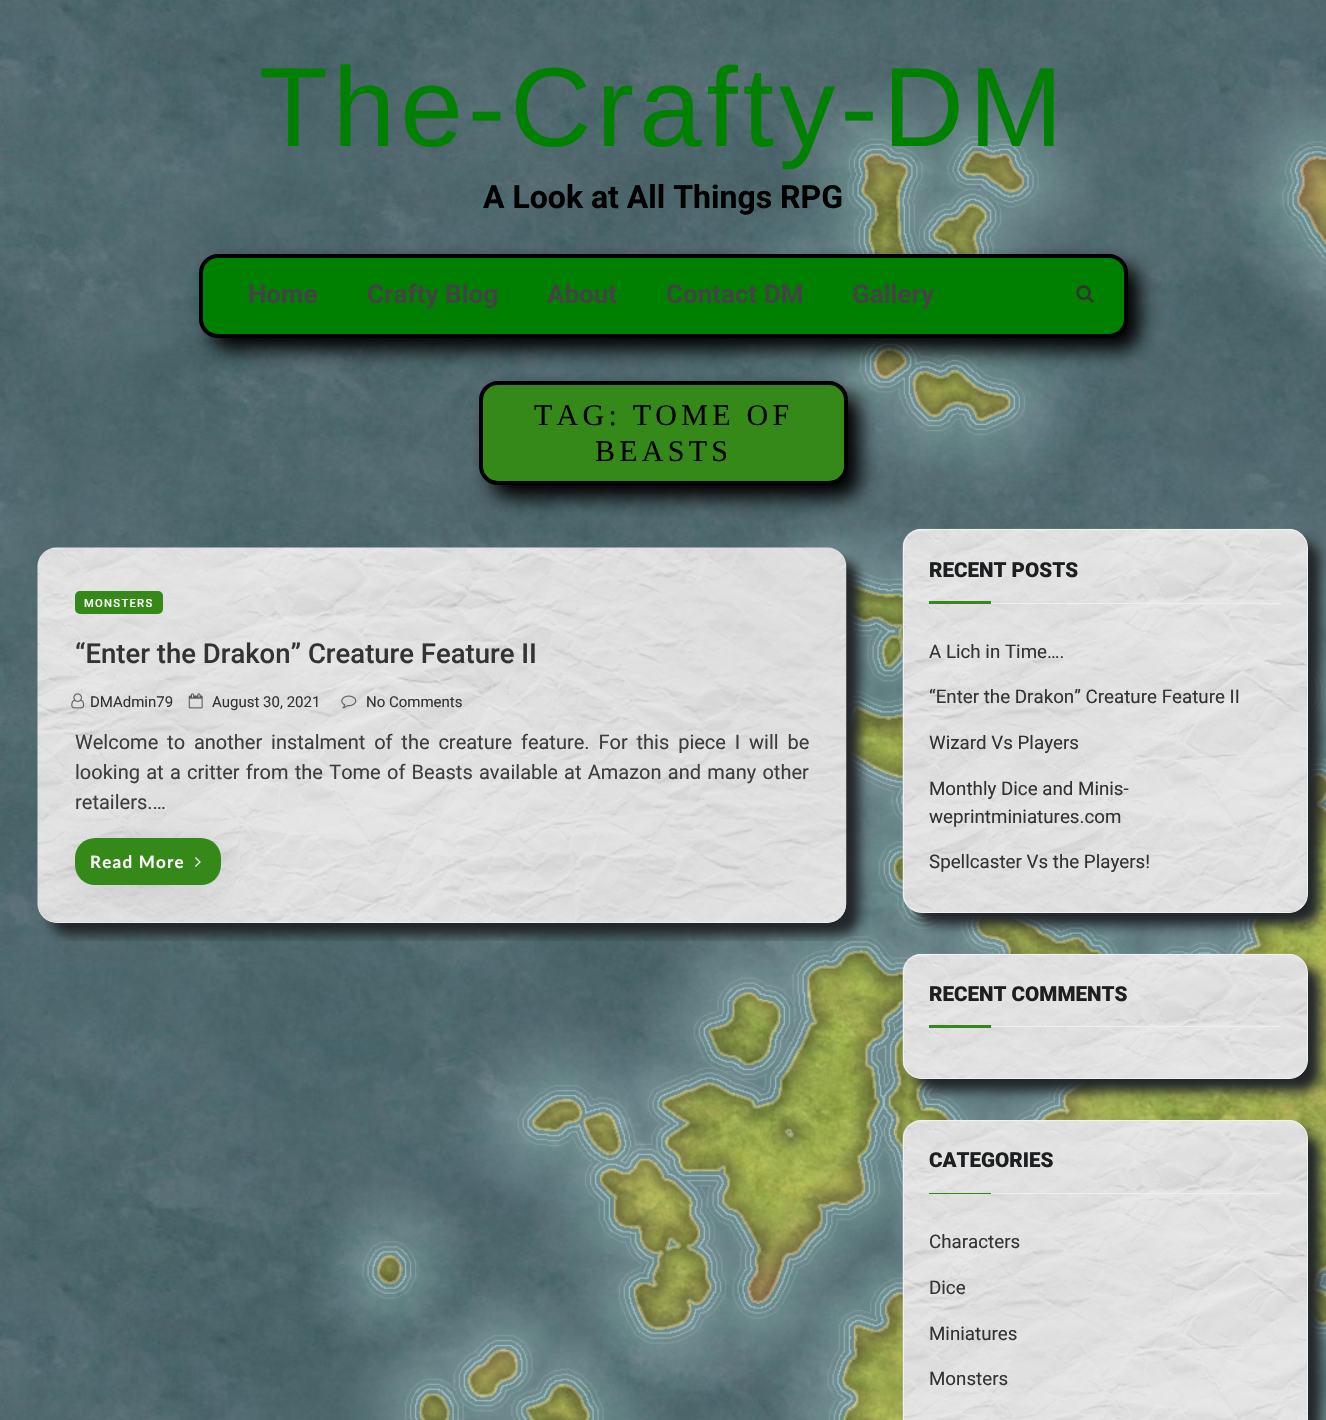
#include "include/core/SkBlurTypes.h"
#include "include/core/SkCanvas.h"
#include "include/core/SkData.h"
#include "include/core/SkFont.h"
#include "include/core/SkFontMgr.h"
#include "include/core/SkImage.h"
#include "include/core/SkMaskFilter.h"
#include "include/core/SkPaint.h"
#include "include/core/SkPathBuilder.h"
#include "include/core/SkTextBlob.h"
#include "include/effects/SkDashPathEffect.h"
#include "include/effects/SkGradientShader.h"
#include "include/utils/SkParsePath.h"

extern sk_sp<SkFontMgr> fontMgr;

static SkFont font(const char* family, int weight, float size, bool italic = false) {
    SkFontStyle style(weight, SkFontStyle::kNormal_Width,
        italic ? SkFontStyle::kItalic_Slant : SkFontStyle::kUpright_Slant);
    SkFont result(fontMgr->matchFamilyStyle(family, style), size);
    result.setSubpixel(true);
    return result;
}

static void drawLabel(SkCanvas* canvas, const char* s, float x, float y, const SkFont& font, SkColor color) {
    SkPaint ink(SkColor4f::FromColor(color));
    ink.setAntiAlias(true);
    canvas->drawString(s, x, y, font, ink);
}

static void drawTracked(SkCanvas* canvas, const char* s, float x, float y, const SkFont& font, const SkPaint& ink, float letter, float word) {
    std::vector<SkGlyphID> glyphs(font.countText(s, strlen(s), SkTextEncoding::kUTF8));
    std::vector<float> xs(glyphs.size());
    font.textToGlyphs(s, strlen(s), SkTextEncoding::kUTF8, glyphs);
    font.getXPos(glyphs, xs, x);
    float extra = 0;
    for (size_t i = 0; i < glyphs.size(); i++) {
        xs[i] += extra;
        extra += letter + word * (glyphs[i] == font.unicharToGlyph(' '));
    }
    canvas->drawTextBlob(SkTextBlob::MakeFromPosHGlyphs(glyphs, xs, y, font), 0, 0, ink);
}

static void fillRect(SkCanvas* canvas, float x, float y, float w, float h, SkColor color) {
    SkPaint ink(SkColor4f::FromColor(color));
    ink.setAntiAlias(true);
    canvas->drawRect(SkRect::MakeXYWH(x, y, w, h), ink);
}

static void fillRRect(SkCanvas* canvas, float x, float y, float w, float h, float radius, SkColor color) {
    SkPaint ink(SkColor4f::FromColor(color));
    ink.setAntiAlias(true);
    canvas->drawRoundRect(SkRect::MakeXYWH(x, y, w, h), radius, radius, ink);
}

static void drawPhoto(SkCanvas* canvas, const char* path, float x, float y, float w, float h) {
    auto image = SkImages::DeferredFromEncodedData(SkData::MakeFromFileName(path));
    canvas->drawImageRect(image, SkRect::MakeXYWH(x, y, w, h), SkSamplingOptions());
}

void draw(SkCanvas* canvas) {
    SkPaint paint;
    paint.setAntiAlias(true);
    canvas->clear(0xFFFFFFFF);
    drawPhoto(canvas, "assets/img1.png", 0, 0, 1326, 1420);
    SkFont font1 = font("Liberation Sans", 400, 112.5f);
    paint.setColor(0xFF008000);
    drawTracked(canvas, "The-Crafty-DM", 259, 146, font1, paint, 5, 0);
    SkFont font2 = font("Roboto", 700, 32);
    drawLabel(canvas, "A Look at All Things RPG", 483, 208, font2, 0xFF000000);
    paint.setColor(0xFF000000);
    paint.setMaskFilter(SkMaskFilter::MakeBlur(kNormal_SkBlurStyle, 9.5f));
    canvas->drawRoundRect(SkRect::MakeXYWH(211, 266, 929, 84), 19, 19, paint);
    paint.setMaskFilter(nullptr);
    paint.setColor(0xFF008000);
    canvas->drawRoundRect(SkRect::MakeXYWH(201, 256, 925, 80), 17, 17, paint);
    paint.setStroke(true);
    paint.setStrokeWidth(4);
    paint.setColor(0xFF000000);
    canvas->drawRoundRect(SkRect::MakeXYWH(201, 256, 925, 80), 17, 17, paint);
    SkFont font3 = font("Roboto", 700, 26);
    drawLabel(canvas, "Home", 248, 303, font3, 0xFF434343);
    drawLabel(canvas, "Crafty Blog", 367, 303, font3, 0xFF434343);
    drawLabel(canvas, "About", 547, 303, font3, 0xFF434343);
    drawLabel(canvas, "Contact DM", 666, 303, font3, 0xFF434343);
    drawLabel(canvas, "Gallery", 852, 303, font3, 0xFF434343);
    drawPhoto(canvas, "assets/img2.png", 1076, 285, 18, 18);
    paint.setStroke(false);
    paint.setMaskFilter(SkMaskFilter::MakeBlur(kNormal_SkBlurStyle, 9.5f));
    canvas->drawRoundRect(SkRect::MakeXYWH(491, 394, 369, 104), 19, 19, paint);
    paint.setMaskFilter(nullptr);
    paint.setColor(0xFF358918);
    canvas->drawRoundRect(SkRect::MakeXYWH(481, 383, 365, 100), 17, 17, paint);
    paint.setStroke(true);
    paint.setColor(0xFF000000);
    canvas->drawRoundRect(SkRect::MakeXYWH(481, 383, 365, 100), 17, 17, paint);
    SkFont font4 = font("Liberation Serif", 400, 30);
    paint.setStroke(false);
    drawTracked(canvas, "TAG: TOME OF", 534, 425, font4, paint, 4.25f, 0);
    drawTracked(canvas, "BEASTS", 595, 461, font4, paint, 4.25f, 0);
    canvas->save();
    canvas->clipRect(SkRect::MakeXYWH(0, 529, 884, 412));
    paint.setColor(0xFF212529);
    paint.setMaskFilter(SkMaskFilter::MakeBlur(kNormal_SkBlurStyle, 6));
    canvas->drawRoundRect(SkRect::MakeXYWH(50, 560, 809, 375), 19, 19, paint);
    paint.setMaskFilter(nullptr);
    canvas->restore();
    fillRRect(canvas, 38, 548, 808, 375, 19, 0xFFFFFFFF);
    drawPhoto(canvas, "assets/img3.png", 37, 547, 810, 376);
    fillRRect(canvas, 75, 591, 88, 23, 5, 0xFF358918);
    SkFont font5 = font("Roboto", 500, 11.25f);
    paint.setColor(0xFFFFFFFF);
    drawTracked(canvas, "MONSTERS", 84, 607, font5, paint, 1.25f, 0);
    SkFont font6 = font("Roboto", 500, 27.5f);
    drawLabel(canvas, "“Enter the Drakon” Creature Feature II", 75, 663, font6, 0xFF333333);
    drawPhoto(canvas, "assets/img4.png", 71, 693, 14, 16);
    SkFont font7 = font("Roboto", 400, 15);
    drawLabel(canvas, "DMAdmin79", 90, 707, font7, 0xFF333333);
    drawPhoto(canvas, "assets/img5.png", 188, 693, 15, 16);
    drawLabel(canvas, "August 30, 2021", 212, 707, font7, 0xFF333333);
    drawPhoto(canvas, "assets/img6.png", 341, 695, 16, 14);
    drawLabel(canvas, "No Comments", 366, 707, font7, 0xFF333333);
    SkFont font8 = font("Roboto", 400, 20);
    paint.setColor(0xFF3B3D3F);
    drawTracked(canvas, "Welcome to another instalment of the creature feature. For this piece I will be", 75, 749, font8, paint, 0, 3.9f);
    drawTracked(canvas, "looking at a critter from the Tome of Beasts available at Amazon and many other", 75, 779, font8, paint, 0, 1.3f);
    drawLabel(canvas, "retailers.…", 75, 809, font8, 0xFF3B3D3F);
    paint.setColor(0x1A000000);
    paint.setMaskFilter(SkMaskFilter::MakeBlur(kNormal_SkBlurStyle, 19));
    canvas->drawRoundRect(SkRect::MakeXYWH(75, 843, 146, 47), 20, 20, paint);
    paint.setMaskFilter(nullptr);
    fillRRect(canvas, 75, 838, 146, 47, 20, 0xFF358918);
    SkFont font9 = font("Lato", 700, 17);
    paint.setColor(0xFFFFFFFF);
    drawTracked(canvas, "Read More", 90, 868, font9, paint, 1.25f, 0);
    drawPhoto(canvas, "assets/img7.png", 195, 857, 6, 10);
    paint.setColor(0xFF212529);
    paint.setMaskFilter(SkMaskFilter::MakeBlur(kNormal_SkBlurStyle, 6));
    canvas->drawRoundRect(SkRect::MakeXYWH(915, 541, 405, 384), 19, 19, paint);
    paint.setMaskFilter(nullptr);
    drawPhoto(canvas, "assets/img8.png", 902, 528, 406, 385);
    paint.setStroke(true);
    paint.setStrokeWidth(1);
    paint.setColor(0xFFF2F2F2);
    canvas->drawRoundRect(SkRect::MakeXYWH(903.5f, 529.5f, 404, 383), 18.5f, 18.5f, paint);
    SkFont font10 = font("Roboto", 900, 20.6f);
    drawLabel(canvas, "RECENT POSTS", 929, 577, font10, 0xFF1C1E1F);
    fillRect(canvas, 929, 601, 62, 3, 0xFF358918);
    fillRect(canvas, 991, 603, 290, 1, 0xFFEFEFEF);
    SkFont font11 = font("Roboto", 400, 18.75f);
    drawLabel(canvas, "A Lich in Time….", 929, 658, font11, 0xFF333333);
    drawLabel(canvas, "“Enter the Drakon” Creature Feature II", 929, 703, font11, 0xFF333333);
    drawLabel(canvas, "Wizard Vs Players", 929, 749, font11, 0xFF333333);
    drawLabel(canvas, "Monthly Dice and Minis-", 929, 795, font11, 0xFF333333);
    drawLabel(canvas, "weprintminiatures.com", 929, 823, font11, 0xFF333333);
    drawLabel(canvas, "Spellcaster Vs the Players!", 929, 868, font11, 0xFF333333);
    paint.setStroke(false);
    paint.setColor(0xFF212529);
    paint.setMaskFilter(SkMaskFilter::MakeBlur(kNormal_SkBlurStyle, 6));
    canvas->drawRoundRect(SkRect::MakeXYWH(915, 966, 405, 125), 19, 19, paint);
    paint.setMaskFilter(nullptr);
    drawPhoto(canvas, "assets/img9.png", 902, 953, 406, 126);
    paint.setStroke(true);
    paint.setColor(0xFFF2F2F2);
    canvas->drawRoundRect(SkRect::MakeXYWH(903.5f, 954.5f, 404, 124), 18.5f, 18.5f, paint);
    drawLabel(canvas, "RECENT COMMENTS", 929, 1001, font10, 0xFF1C1E1F);
    fillRect(canvas, 929, 1025, 62, 3, 0xFF358918);
    fillRect(canvas, 991, 1026, 290, 1, 0xFFEFEFEF);
    paint.setStroke(false);
    paint.setColor(0xFF212529);
    paint.setMaskFilter(SkMaskFilter::MakeBlur(kNormal_SkBlurStyle, 6));
    canvas->drawRoundRect(SkRect::MakeXYWH(915, 1133, 405, 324), 19, 19, paint);
    paint.setMaskFilter(nullptr);
    drawPhoto(canvas, "assets/img10.png", 902, 1120, 406, 300);
    paint.setStroke(true);
    paint.setColor(0xFFF2F2F2);
    canvas->drawRoundRect(SkRect::MakeXYWH(903.5f, 1120.5f, 404, 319), 18.5f, 18.5f, paint);
    drawLabel(canvas, "CATEGORIES", 929, 1167, font10, 0xFF1C1E1F);
    fillRect(canvas, 929, 1193, 62, 1, 0xFF358918);
    fillRect(canvas, 991, 1193, 290, 1, 0xFFEFEFEF);
    drawLabel(canvas, "Characters", 929, 1248, font11, 0xFF333333);
    drawLabel(canvas, "Dice", 929, 1294, font11, 0xFF333333);
    drawLabel(canvas, "Miniatures", 929, 1340, font11, 0xFF333333);
    drawLabel(canvas, "Monsters", 929, 1385, font11, 0xFF333333);
}
